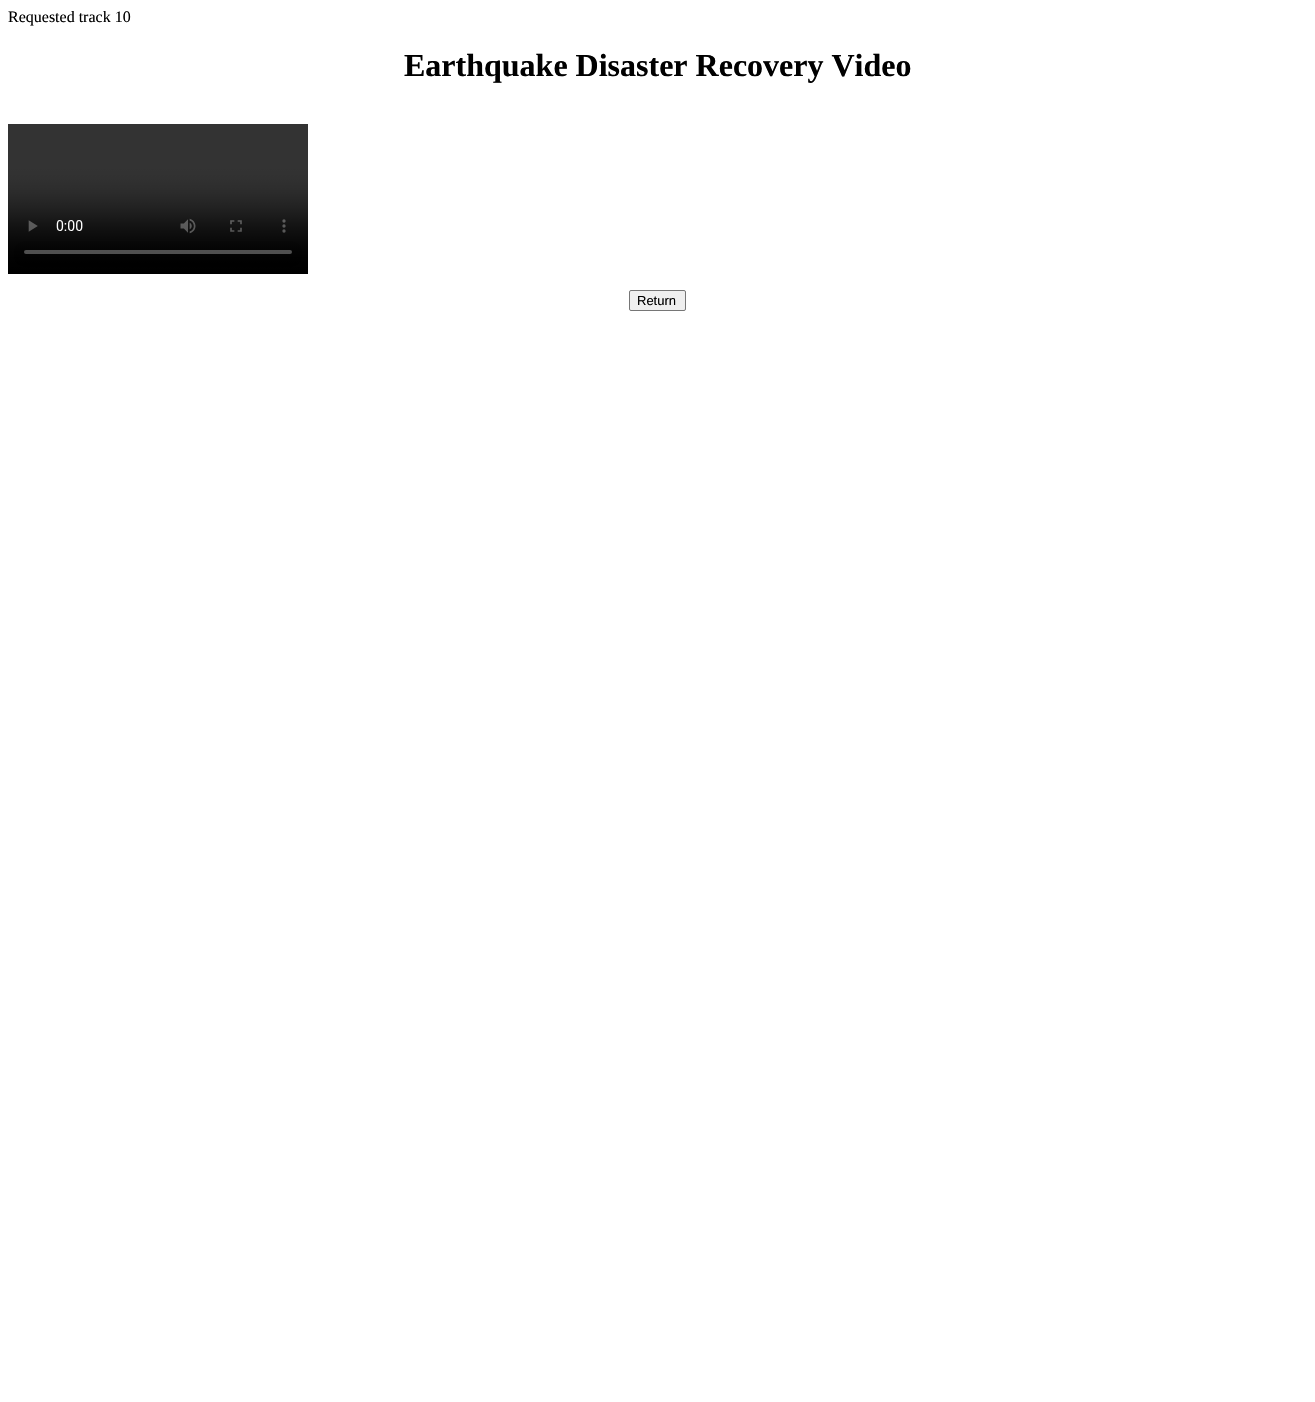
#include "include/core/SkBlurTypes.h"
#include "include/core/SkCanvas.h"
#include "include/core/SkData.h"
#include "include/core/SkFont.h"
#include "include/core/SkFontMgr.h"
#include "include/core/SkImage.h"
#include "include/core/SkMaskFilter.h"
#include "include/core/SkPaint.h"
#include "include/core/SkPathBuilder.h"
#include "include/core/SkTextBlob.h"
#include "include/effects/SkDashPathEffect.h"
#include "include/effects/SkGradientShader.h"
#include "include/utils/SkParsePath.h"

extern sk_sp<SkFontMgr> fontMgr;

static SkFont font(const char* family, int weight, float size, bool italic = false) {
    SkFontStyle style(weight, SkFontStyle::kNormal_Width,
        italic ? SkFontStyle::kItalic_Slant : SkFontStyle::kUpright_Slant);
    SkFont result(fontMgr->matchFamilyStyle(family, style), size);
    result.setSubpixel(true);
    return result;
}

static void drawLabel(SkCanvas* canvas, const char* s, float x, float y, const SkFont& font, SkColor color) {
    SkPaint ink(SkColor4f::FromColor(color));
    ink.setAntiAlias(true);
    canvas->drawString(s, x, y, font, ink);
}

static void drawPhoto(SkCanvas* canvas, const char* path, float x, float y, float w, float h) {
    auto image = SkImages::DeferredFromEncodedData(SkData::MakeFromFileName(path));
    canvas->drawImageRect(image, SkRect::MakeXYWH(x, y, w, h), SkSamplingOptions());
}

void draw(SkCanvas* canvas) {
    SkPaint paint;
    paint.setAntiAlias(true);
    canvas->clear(0xFFFFFFFF);
    SkFont font1 = font("Liberation Serif", 400, 16);
    drawLabel(canvas, "Requested track 10", 8, 22, font1, 0xFF000000);
    SkFont font2 = font("Liberation Serif", 700, 32);
    drawLabel(canvas, "Earthquake Disaster Recovery Video", 404, 76, font2, 0xFF000000);
    drawPhoto(canvas, "assets/img1.png", 8, 124, 300, 150);
    paint.setColor(0xFFEFEFEF);
    canvas->drawRoundRect(SkRect::MakeXYWH(629.5f, 290.5f, 56, 20), 1.5f, 1.5f, paint);
    paint.setStroke(true);
    paint.setStrokeWidth(1);
    paint.setColor(0xFF767676);
    canvas->drawRoundRect(SkRect::MakeXYWH(629.5f, 290.5f, 56, 20), 1.5f, 1.5f, paint);
    SkFont font3 = font("Liberation Sans", 400, 13);
    drawLabel(canvas, "Return", 637, 305, font3, 0xFF000000);
}
